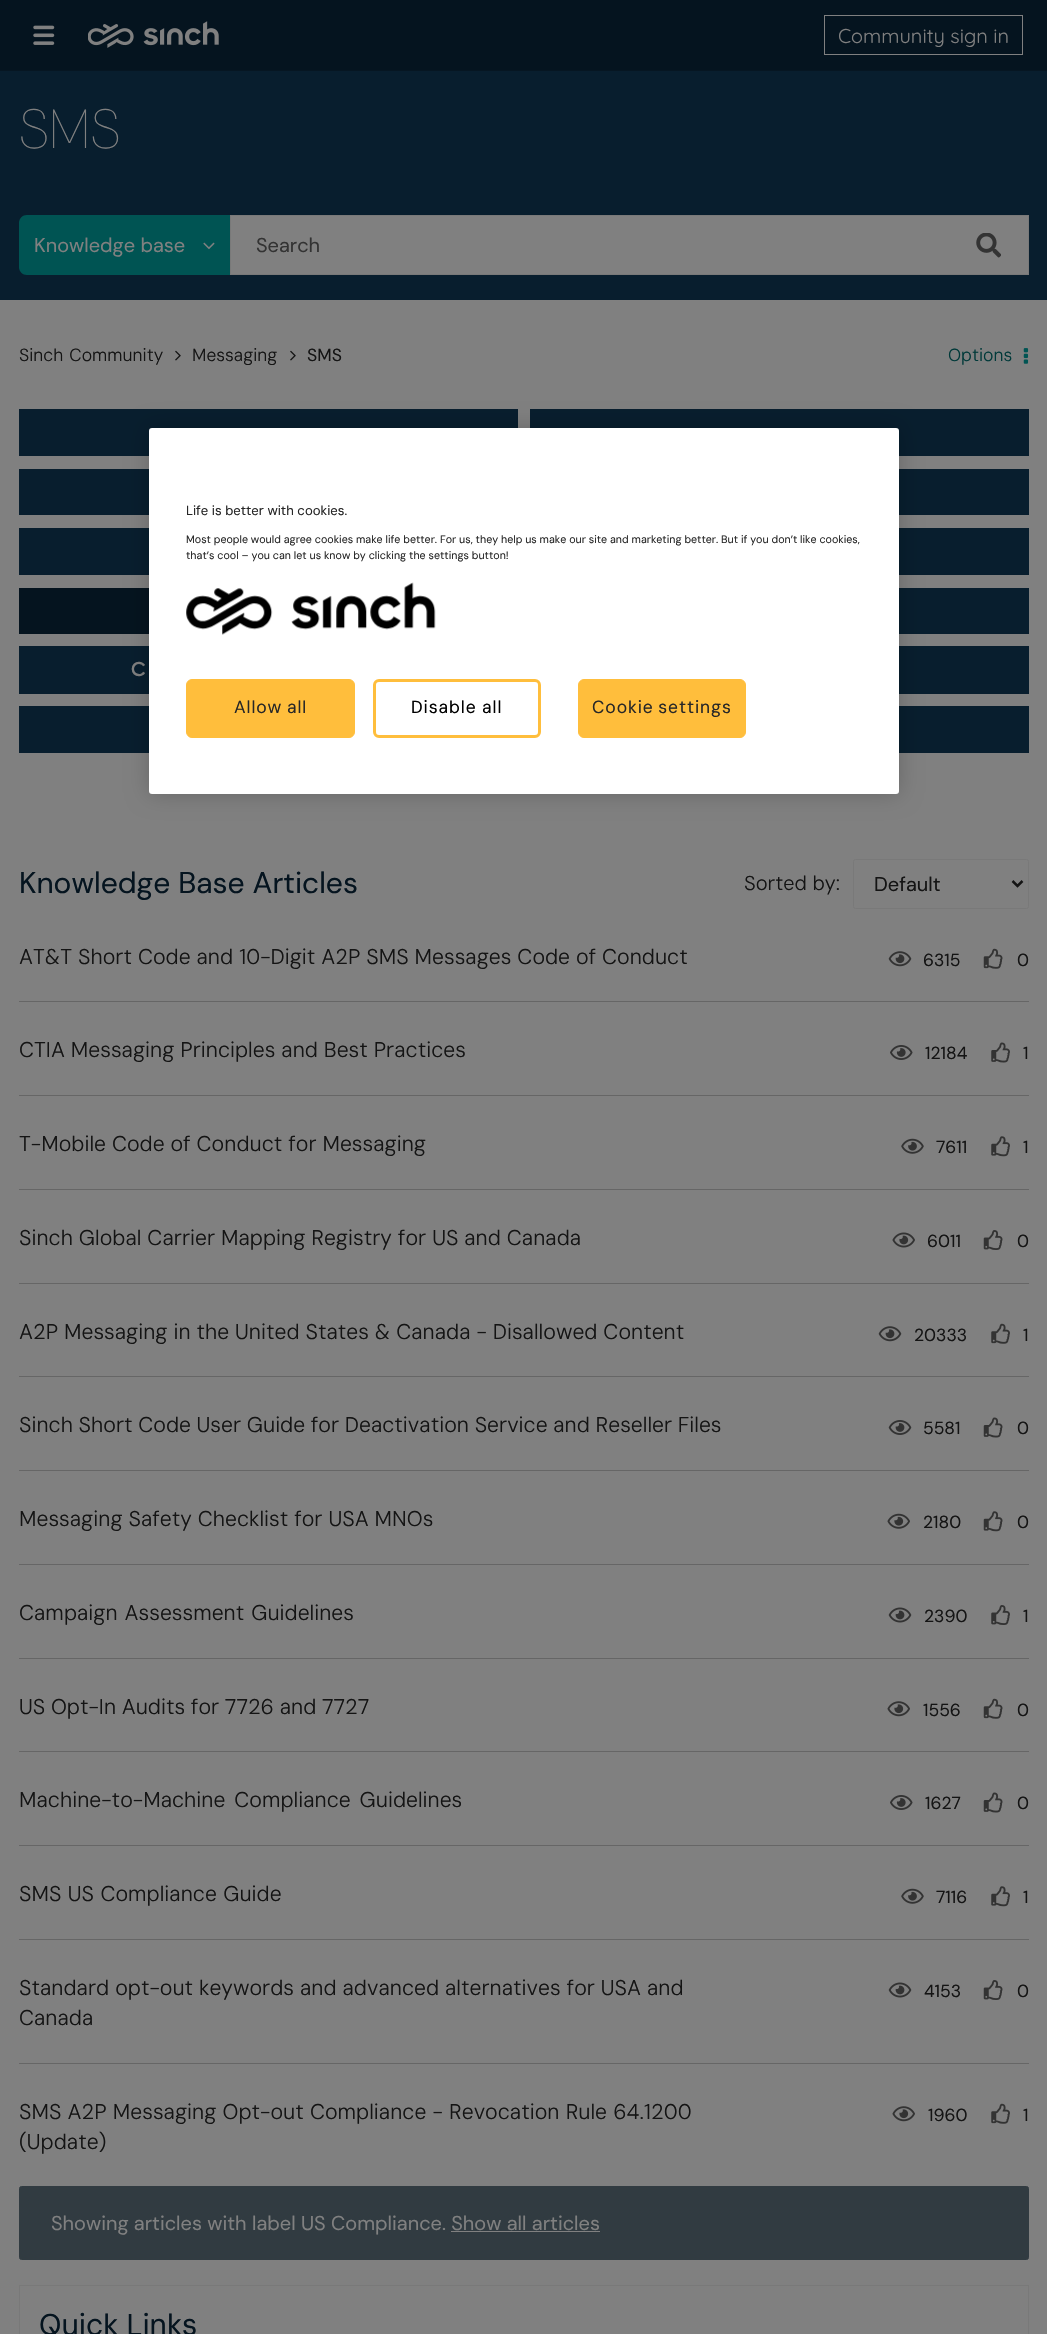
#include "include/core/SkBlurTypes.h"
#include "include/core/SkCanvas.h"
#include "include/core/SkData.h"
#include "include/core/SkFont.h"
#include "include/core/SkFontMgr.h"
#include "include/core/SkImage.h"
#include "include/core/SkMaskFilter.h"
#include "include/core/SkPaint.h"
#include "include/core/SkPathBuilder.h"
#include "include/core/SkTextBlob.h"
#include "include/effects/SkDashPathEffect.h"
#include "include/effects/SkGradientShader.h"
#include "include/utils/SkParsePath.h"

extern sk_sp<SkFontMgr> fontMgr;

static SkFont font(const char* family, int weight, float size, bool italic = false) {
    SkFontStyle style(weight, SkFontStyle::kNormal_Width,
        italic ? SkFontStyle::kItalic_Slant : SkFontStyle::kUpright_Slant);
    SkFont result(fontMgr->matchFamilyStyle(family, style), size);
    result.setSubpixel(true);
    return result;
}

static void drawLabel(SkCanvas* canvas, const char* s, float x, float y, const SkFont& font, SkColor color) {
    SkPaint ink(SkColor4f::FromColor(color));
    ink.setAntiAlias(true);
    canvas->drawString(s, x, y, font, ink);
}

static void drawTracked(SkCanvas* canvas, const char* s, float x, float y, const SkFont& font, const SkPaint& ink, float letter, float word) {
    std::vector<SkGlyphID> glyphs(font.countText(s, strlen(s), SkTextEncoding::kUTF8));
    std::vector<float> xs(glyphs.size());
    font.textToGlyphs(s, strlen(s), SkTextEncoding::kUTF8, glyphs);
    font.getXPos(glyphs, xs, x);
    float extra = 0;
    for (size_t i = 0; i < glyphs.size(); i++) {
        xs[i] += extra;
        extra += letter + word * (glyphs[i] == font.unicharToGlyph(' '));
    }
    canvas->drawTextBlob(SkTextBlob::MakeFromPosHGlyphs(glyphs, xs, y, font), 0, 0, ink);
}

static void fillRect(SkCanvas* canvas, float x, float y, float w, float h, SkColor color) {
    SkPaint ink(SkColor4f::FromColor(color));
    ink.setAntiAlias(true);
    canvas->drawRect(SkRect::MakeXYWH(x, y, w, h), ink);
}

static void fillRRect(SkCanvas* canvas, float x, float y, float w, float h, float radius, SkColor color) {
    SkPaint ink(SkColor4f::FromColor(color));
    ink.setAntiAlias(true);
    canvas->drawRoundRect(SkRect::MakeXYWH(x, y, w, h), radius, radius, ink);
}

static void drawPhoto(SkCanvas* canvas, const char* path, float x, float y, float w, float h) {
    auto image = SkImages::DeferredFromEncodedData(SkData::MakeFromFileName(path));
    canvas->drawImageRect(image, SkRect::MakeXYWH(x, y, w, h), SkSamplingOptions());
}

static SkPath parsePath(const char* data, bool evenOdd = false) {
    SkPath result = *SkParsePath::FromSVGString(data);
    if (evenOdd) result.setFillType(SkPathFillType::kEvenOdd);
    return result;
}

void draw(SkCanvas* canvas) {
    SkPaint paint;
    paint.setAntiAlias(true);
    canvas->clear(0xFF808080);
    fillRect(canvas, 0, 0, 1047, 70, 0xFF05141F);
    drawPhoto(canvas, "assets/img1.png", 33, 25, 22, 20);
    drawPhoto(canvas, "assets/img2.png", 88, 21, 131, 27);
    paint.setStroke(true);
    paint.setStrokeWidth(1);
    paint.setColor(0xFF808080);
    canvas->drawRect(SkRect::MakeXYWH(824.5f, 15.5f, 198, 39), paint);
    SkFont font1 = font("Quicksand", 400, 20);
    drawLabel(canvas, "Community sign in", 838, 43, font1, 0xFF808080);
    fillRect(canvas, 0, 71, 1047, 229, 0xFF081E2E);
    fillRect(canvas, 0, 70, 1047, 1, 0xFF061622);
    SkFont font2 = font("DM Sans", 100, 55);
    drawLabel(canvas, "SMS", 19, 148, font2, 0xFF808080);
    paint.setStroke(false);
    paint.setColor(0xFF005453);
    canvas->drawPath(parsePath("M27 215H230V275H27C22.5 275 19 271.5 19 267V223C19 218.5 22.5 215 27 215Z"), paint);
    SkFont font3 = font("DM Sans", 400, 20);
    drawLabel(canvas, "Knowledge base", 34, 252, font3, 0xFF808080);
    drawPhoto(canvas, "assets/img3.png", 203, 242, 12, 8);
    paint.setColor(0xFF808080);
    canvas->drawRect(SkRect::MakeXYWH(230.5f, 215.5f, 798, 59), paint);
    paint.setStroke(true);
    paint.setColor(0xFF797979);
    canvas->drawRect(SkRect::MakeXYWH(230.5f, 215.5f, 798, 59), paint);
    drawLabel(canvas, "Search", 256, 252, font3, 0xFF333333);
    drawPhoto(canvas, "assets/img4.png", 976, 233, 25, 25);
    SkFont font4 = font("DM Sans", 300, 17.5f);
    paint.setStroke(false);
    paint.setColor(0xFF141414);
    drawTracked(canvas, "Sinch Community", 19, 361, font4, paint, 0, 1);
    drawPhoto(canvas, "assets/img5.png", 175, 350, 6, 11);
    drawLabel(canvas, "Messaging", 192, 361, font4, 0xFF141414);
    drawPhoto(canvas, "assets/img5.png", 290, 350, 6, 11);
    SkFont font5 = font("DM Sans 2", 400, 17.5f);
    drawLabel(canvas, "SMS", 307, 361, font5, 0xFF141414);
    drawLabel(canvas, "Options", 948, 361, font4, 0xFF003939);
    drawPhoto(canvas, "assets/img6.png", 1023, 348, 6, 16);
    fillRect(canvas, 19, 409, 499, 47, 0xFF081E2E);
    fillRect(canvas, 530, 409, 499, 47, 0xFF081E2E);
    fillRect(canvas, 19, 469, 130, 46, 0xFF081E2E);
    fillRect(canvas, 899, 469, 130, 46, 0xFF081E2E);
    fillRect(canvas, 19, 528, 130, 47, 0xFF081E2E);
    fillRect(canvas, 899, 528, 130, 47, 0xFF081E2E);
    fillRect(canvas, 19, 588, 130, 46, 0xFF05141F);
    fillRect(canvas, 899, 588, 130, 46, 0xFF081E2E);
    fillRect(canvas, 19, 646, 130, 48, 0xFF081E2E);
    SkFont font6 = font("Gilroy", 600, 20);
    drawLabel(canvas, "C", 131, 676, font6, 0xFF808080);
    fillRect(canvas, 899, 646, 130, 48, 0xFF081E2E);
    fillRect(canvas, 19, 706, 130, 47, 0xFF081E2E);
    fillRect(canvas, 899, 706, 130, 47, 0xFF081E2E);
    SkFont font7 = font("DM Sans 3", 400, 30);
    drawLabel(canvas, "Knowledge Base Articles", 19, 893, font7, 0xFF05141F);
    SkFont font8 = font("DM Sans", 300, 20);
    drawLabel(canvas, "Sorted by:", 744, 890, font8, 0xFF141414);
    paint.setStroke(true);
    paint.setColor(0xFF797979);
    canvas->drawRoundRect(SkRect::MakeXYWH(853.5f, 859.5f, 175, 49), 2, 2, paint);
    paint.setStrokeWidth(2.5f);
    paint.setColor(0xFF141414);
    canvas->drawPath(parsePath("M1012.5 881L1017.5 886L1022.5 881"), paint);
    drawLabel(canvas, "Default", 874, 891, font3, 0xFF141414);
    fillRect(canvas, 19, 1001, 1010, 1, 0xFF666666);
    SkFont font9 = font("DM Sans", 300, 21.25f);
    drawLabel(canvas, "AT&T Short Code and 10-Digit A2P SMS Messages Code of Conduct", 19, 964, font9, 0xFF141414);
    drawPhoto(canvas, "assets/img7.png", 888, 951, 24, 16);
    SkFont font10 = font("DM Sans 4", 400, 17.5f);
    drawLabel(canvas, "6315", 923, 966, font10, 0xFF141414);
    drawPhoto(canvas, "assets/img8.png", 983, 948, 20, 21);
    drawLabel(canvas, "0", 1017, 966, font10, 0xFF141414);
    fillRect(canvas, 19, 1095, 1010, 1, 0xFF666666);
    drawLabel(canvas, "CTIA Messaging Principles and Best Practices", 19, 1057, font9, 0xFF141414);
    drawPhoto(canvas, "assets/img9.png", 890, 1045, 23, 15);
    drawLabel(canvas, "12184", 925, 1059, font10, 0xFF141414);
    drawPhoto(canvas, "assets/img10.png", 991, 1042, 19, 21);
    drawLabel(canvas, "1", 1023, 1059, font10, 0xFF141414);
    fillRect(canvas, 19, 1189, 1010, 1, 0xFF666666);
    drawLabel(canvas, "T-Mobile Code of Conduct for Messaging", 19, 1151, font9, 0xFF141414);
    drawPhoto(canvas, "assets/img11.png", 901, 1138, 23, 16);
    drawLabel(canvas, "7611", 936, 1153, font10, 0xFF141414);
    drawPhoto(canvas, "assets/img12.png", 991, 1136, 19, 21);
    drawLabel(canvas, "1", 1023, 1153, font10, 0xFF141414);
    fillRect(canvas, 19, 1283, 1010, 1, 0xFF666666);
    drawLabel(canvas, "Sinch Global Carrier Mapping Registry for US and Canada", 19, 1245, font9, 0xFF141414);
    drawPhoto(canvas, "assets/img13.png", 892, 1232, 23, 16);
    drawLabel(canvas, "6011", 927, 1247, font10, 0xFF141414);
    drawPhoto(canvas, "assets/img14.png", 983, 1230, 20, 20);
    drawLabel(canvas, "0", 1017, 1247, font10, 0xFF141414);
    fillRect(canvas, 19, 1376, 1010, 1, 0xFF666666);
    drawLabel(canvas, "A2P Messaging in the United States & Canada - Disallowed Content", 19, 1339, font9, 0xFF141414);
    drawPhoto(canvas, "assets/img7.png", 878, 1326, 24, 16);
    drawLabel(canvas, "20333", 914, 1341, font10, 0xFF141414);
    drawPhoto(canvas, "assets/img15.png", 991, 1323, 19, 21);
    drawLabel(canvas, "1", 1023, 1341, font10, 0xFF141414);
    fillRect(canvas, 19, 1470, 1010, 1, 0xFF666666);
    paint.setStroke(false);
    drawTracked(canvas, "Sinch Short Code User Guide for Deactivation Service and Reseller Files", 19, 1432, font9, paint, 0, -0.25f);
    drawPhoto(canvas, "assets/img16.png", 888, 1420, 24, 15);
    drawLabel(canvas, "5581", 923, 1434, font10, 0xFF141414);
    drawPhoto(canvas, "assets/img17.png", 983, 1417, 20, 21);
    drawLabel(canvas, "0", 1017, 1434, font10, 0xFF141414);
    fillRect(canvas, 19, 1564, 1010, 1, 0xFF666666);
    drawLabel(canvas, "Messaging Safety Checklist for USA MNOs", 19, 1526, font9, 0xFF141414);
    drawPhoto(canvas, "assets/img18.png", 887, 1513, 23, 16);
    drawLabel(canvas, "2180", 923, 1528, font10, 0xFF141414);
    drawPhoto(canvas, "assets/img19.png", 983, 1511, 20, 21);
    drawLabel(canvas, "0", 1017, 1528, font10, 0xFF141414);
    fillRect(canvas, 19, 1658, 1010, 1, 0xFF666666);
    drawTracked(canvas, "Campaign Assessment Guidelines", 19, 1620, font9, paint, 0, 1);
    drawPhoto(canvas, "assets/img20.png", 888, 1607, 24, 16);
    drawLabel(canvas, "2390", 924, 1622, font10, 0xFF141414);
    drawPhoto(canvas, "assets/img21.png", 991, 1605, 19, 20);
    drawLabel(canvas, "1", 1023, 1622, font10, 0xFF141414);
    fillRect(canvas, 19, 1751, 1010, 1, 0xFF666666);
    drawTracked(canvas, "US Opt-In Audits for 7726 and 7727", 19, 1714, font9, paint, 0, -0.25f);
    drawPhoto(canvas, "assets/img22.png", 887, 1701, 23, 16);
    drawLabel(canvas, "1556", 923, 1716, font10, 0xFF141414);
    drawPhoto(canvas, "assets/img8.png", 983, 1698, 20, 21);
    drawLabel(canvas, "0", 1017, 1716, font10, 0xFF141414);
    fillRect(canvas, 19, 1845, 1010, 1, 0xFF666666);
    drawTracked(canvas, "Machine-to-Machine Compliance Guidelines", 19, 1807, font9, paint, 0, 3);
    drawPhoto(canvas, "assets/img9.png", 890, 1795, 23, 15);
    drawLabel(canvas, "1627", 925, 1809, font10, 0xFF141414);
    drawPhoto(canvas, "assets/img17.png", 983, 1792, 20, 21);
    drawLabel(canvas, "0", 1017, 1809, font10, 0xFF141414);
    fillRect(canvas, 19, 1939, 1010, 1, 0xFF666666);
    drawTracked(canvas, "SMS US Compliance Guide", 19, 1901, font9, paint, 0, 0.5f);
    drawPhoto(canvas, "assets/img11.png", 901, 1888, 23, 16);
    drawLabel(canvas, "7116", 936, 1903, font10, 0xFF141414);
    drawPhoto(canvas, "assets/img12.png", 991, 1886, 19, 21);
    drawLabel(canvas, "1", 1023, 1903, font10, 0xFF141414);
    fillRect(canvas, 19, 2063, 1010, 1, 0xFF666666);
    drawLabel(canvas, "Standard opt-out keywords and advanced alternatives for USA and", 19, 1995, font9, 0xFF141414);
    drawLabel(canvas, "Canada", 19, 2025, font9, 0xFF141414);
    drawPhoto(canvas, "assets/img20.png", 888, 1982, 24, 16);
    drawLabel(canvas, "4153", 924, 1997, font10, 0xFF141414);
    drawPhoto(canvas, "assets/img14.png", 983, 1980, 20, 20);
    drawLabel(canvas, "0", 1017, 1997, font10, 0xFF141414);
    drawTracked(canvas, "SMS A2P Messaging Opt-out Compliance - Revocation Rule 64.1200", 19, 2119, font9, paint, 0, 0.25f);
    drawLabel(canvas, "(Update)", 19, 2149, font9, 0xFF141414);
    drawPhoto(canvas, "assets/img22.png", 892, 2106, 23, 16);
    drawLabel(canvas, "1960", 928, 2121, font10, 0xFF141414);
    drawPhoto(canvas, "assets/img15.png", 991, 2103, 19, 21);
    drawLabel(canvas, "1", 1023, 2121, font10, 0xFF141414);
    paint.setColor(0xFF313B41);
    canvas->drawRoundRect(SkRect::MakeXYWH(19.5f, 2186.5f, 1009, 73), 2, 2, paint);
    paint.setStroke(true);
    paint.setStrokeWidth(1);
    canvas->drawRoundRect(SkRect::MakeXYWH(19.5f, 2186.5f, 1009, 73), 2, 2, paint);
    drawLabel(canvas, "Showing articles with label US Compliance. Show all articles", 51, 2230, font3, 0xFF808080);
    fillRect(canvas, 451, 2231, 149, 1, 0xFF808080);
    paint.setColor(0xFF797979);
    canvas->drawRect(SkRect::MakeXYWH(19.5f, 2285.5f, 1009, 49), paint);
    SkFont font11 = font("DM Sans 2", 400, 30);
    drawLabel(canvas, "Quick Links", 39, 2335, font11, 0xFF05141F);
    paint.setStroke(false);
    paint.setColor(0x33000000);
    paint.setMaskFilter(SkMaskFilter::MakeBlur(kNormal_SkBlurStyle, 11));
    canvas->drawRoundRect(SkRect::MakeXYWH(149, 428, 750, 366), 3, 3, paint);
    paint.setMaskFilter(nullptr);
    fillRRect(canvas, 149, 428, 750, 366, 3, 0xFFFFFFFF);
    SkFont font12 = font("DM Sans 2", 400, 13.1f);
    drawLabel(canvas, "Life is better with cookies.", 186, 515, font12, 0xFF272727);
    SkFont font13 = font("DM Sans 2", 400, 10.67f);
    drawLabel(canvas, "Most people would agree cookies make life better. For us, they help us make our site and marketing better. But if you don’t like cookies,", 186, 543, font13, 0xFF272727);
    drawLabel(canvas, "that’s cool – you can let us know by clicking the settings button!", 186, 559, font13, 0xFF272727);
    drawPhoto(canvas, "assets/img23.png", 186, 582, 250, 53);
    paint.setColor(0xFFFFBE3C);
    canvas->drawRoundRect(SkRect::MakeXYWH(186.5f, 679.5f, 168, 58), 5.5f, 5.5f, paint);
    paint.setStroke(true);
    canvas->drawRoundRect(SkRect::MakeXYWH(186.5f, 679.5f, 168, 58), 5.5f, 5.5f, paint);
    paint.setStroke(false);
    paint.setColor(0xFF272727);
    drawTracked(canvas, "Allow all", 234, 713, font5, paint, 0.9f, -1);
    paint.setStroke(true);
    paint.setStrokeWidth(3);
    paint.setColor(0xFFFFBE3C);
    canvas->drawRoundRect(SkRect::MakeXYWH(374.5f, 680.5f, 165, 56), 4.5f, 4.5f, paint);
    paint.setStroke(false);
    paint.setColor(0xFF000000);
    drawTracked(canvas, "Disable all", 411, 713, font5, paint, 0.9f, 0);
    paint.setColor(0xFFFFBE3C);
    canvas->drawRoundRect(SkRect::MakeXYWH(578.5f, 679.5f, 167, 58), 5.5f, 5.5f, paint);
    paint.setStroke(true);
    paint.setStrokeWidth(1);
    canvas->drawRoundRect(SkRect::MakeXYWH(578.5f, 679.5f, 167, 58), 5.5f, 5.5f, paint);
    paint.setStroke(false);
    paint.setColor(0xFF272727);
    drawTracked(canvas, "Cookie settings", 592, 713, font5, paint, 0.9f, -1);
}
